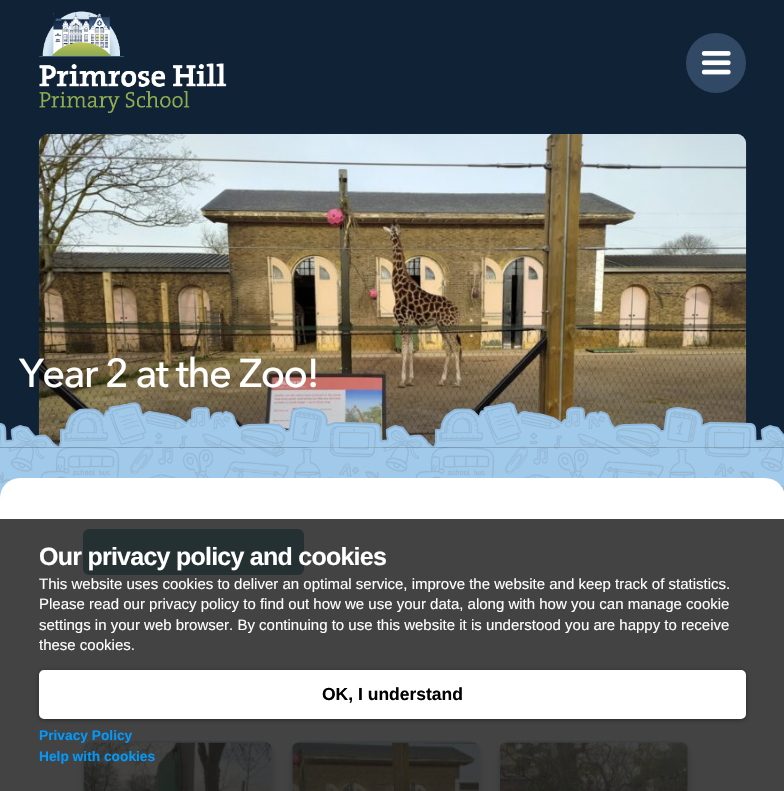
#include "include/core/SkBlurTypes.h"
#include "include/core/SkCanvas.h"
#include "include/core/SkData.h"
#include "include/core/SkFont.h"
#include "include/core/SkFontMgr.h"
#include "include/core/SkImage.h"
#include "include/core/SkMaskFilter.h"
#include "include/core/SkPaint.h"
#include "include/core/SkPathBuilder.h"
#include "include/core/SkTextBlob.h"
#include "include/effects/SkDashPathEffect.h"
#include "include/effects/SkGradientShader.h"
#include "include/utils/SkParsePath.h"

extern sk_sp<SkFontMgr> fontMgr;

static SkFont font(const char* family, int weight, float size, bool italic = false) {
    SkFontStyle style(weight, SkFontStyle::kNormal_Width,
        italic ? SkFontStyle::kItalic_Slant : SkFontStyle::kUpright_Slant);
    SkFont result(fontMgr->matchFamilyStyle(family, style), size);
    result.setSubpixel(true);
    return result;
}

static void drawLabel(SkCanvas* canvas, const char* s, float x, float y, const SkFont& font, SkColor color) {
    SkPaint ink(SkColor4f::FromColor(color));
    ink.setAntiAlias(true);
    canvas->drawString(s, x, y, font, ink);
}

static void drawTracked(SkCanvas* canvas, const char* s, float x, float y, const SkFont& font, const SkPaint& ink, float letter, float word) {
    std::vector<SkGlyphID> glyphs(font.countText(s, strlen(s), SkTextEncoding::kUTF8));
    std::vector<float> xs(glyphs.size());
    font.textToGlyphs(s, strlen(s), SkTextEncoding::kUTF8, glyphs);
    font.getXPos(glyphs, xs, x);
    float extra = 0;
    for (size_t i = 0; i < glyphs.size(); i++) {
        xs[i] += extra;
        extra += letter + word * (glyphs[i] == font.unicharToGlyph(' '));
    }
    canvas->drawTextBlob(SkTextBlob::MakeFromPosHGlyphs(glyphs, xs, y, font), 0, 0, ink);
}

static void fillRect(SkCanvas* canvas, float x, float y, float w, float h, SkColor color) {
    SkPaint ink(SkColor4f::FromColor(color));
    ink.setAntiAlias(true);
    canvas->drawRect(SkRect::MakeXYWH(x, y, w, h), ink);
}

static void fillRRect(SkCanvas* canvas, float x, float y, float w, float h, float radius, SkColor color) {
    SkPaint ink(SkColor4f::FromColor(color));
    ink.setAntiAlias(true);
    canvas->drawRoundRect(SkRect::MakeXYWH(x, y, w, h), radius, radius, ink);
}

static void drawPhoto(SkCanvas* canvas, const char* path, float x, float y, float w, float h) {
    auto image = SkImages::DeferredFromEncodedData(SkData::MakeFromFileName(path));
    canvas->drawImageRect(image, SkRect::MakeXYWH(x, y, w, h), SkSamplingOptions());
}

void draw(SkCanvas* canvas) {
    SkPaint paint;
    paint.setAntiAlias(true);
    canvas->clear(0xFF102236);
    drawPhoto(canvas, "assets/img1.png", 38, 11, 189, 102);
    paint.setColor(0xFF314965);
    canvas->drawCircle(716, 63, 30, paint);
    drawPhoto(canvas, "assets/img2.png", 701, 51, 30, 24);
    drawPhoto(canvas, "assets/img3.png", 38, 134, 709, 314);
    drawPhoto(canvas, "assets/img4.png", 0, 447, 784, 51);
    fillRRect(canvas, 0, 478, 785, 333, 20, 0xFFFFFFFF);
    SkFont font1 = font("Avenir Next", 500, 40);
    paint.setColor(0xFFFFFFFF);
    drawTracked(canvas, "Year 2 at the Zoo!", 19, 387, font1, paint, -1.6f, 0);
    fillRRect(canvas, 83, 529, 221, 46, 6, 0xFF61A0A9);
    paint.setColor(0x4D212F42);
    paint.setMaskFilter(SkMaskFilter::MakeBlur(kNormal_SkBlurStyle, 3));
    canvas->drawRoundRect(SkRect::MakeXYWH(83, 745, 190, 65), 10, 10, paint);
    paint.setMaskFilter(nullptr);
    fillRRect(canvas, 83, 741, 190, 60, 10, 0xFFD5E5F4);
    drawPhoto(canvas, "assets/img5.png", 83, 742, 189, 49);
    paint.setMaskFilter(SkMaskFilter::MakeBlur(kNormal_SkBlurStyle, 3));
    canvas->drawRoundRect(SkRect::MakeXYWH(291, 745, 189, 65), 10, 10, paint);
    paint.setMaskFilter(nullptr);
    fillRRect(canvas, 291, 741, 189, 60, 10, 0xFFD5E5F4);
    drawPhoto(canvas, "assets/img6.png", 292, 742, 187, 49);
    paint.setMaskFilter(SkMaskFilter::MakeBlur(kNormal_SkBlurStyle, 3));
    canvas->drawRoundRect(SkRect::MakeXYWH(499, 745, 190, 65), 10, 10, paint);
    paint.setMaskFilter(nullptr);
    fillRRect(canvas, 499, 741, 190, 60, 10, 0xFFD5E5F4);
    drawPhoto(canvas, "assets/img7.png", 500, 742, 188, 49);
    drawPhoto(canvas, "assets/img8.png", 0, 402, 784, 46);
    fillRect(canvas, 0, 519, 784, 272, 0xCC141414);
    SkFont font2 = font("Liberation Sans", 700, 25);
    paint.setColor(0xFFFFFFFF);
    drawTracked(canvas, "Our privacy policy and cookies", 39, 565, font2, paint, -0.75f, 0);
    SkFont font3 = font("Liberation Sans", 400, 15);
    drawLabel(canvas, "This website uses cookies to deliver an optimal service, improve the website and keep track of statistics.", 39, 589, font3, 0xFFFFFFFF);
    drawLabel(canvas, "Please read our privacy policy to find out how we use your data, along with how you can manage cookie", 39, 609, font3, 0xFFFFFFFF);
    drawLabel(canvas, "settings in your web browser. By continuing to use this website it is understood you are happy to receive", 39, 630, font3, 0xFFFFFFFF);
    drawLabel(canvas, "these cookies.", 39, 650, font3, 0xFFFFFFFF);
    paint.setColor(0x66000000);
    paint.setMaskFilter(SkMaskFilter::MakeBlur(kNormal_SkBlurStyle, 2));
    canvas->drawRoundRect(SkRect::MakeXYWH(39, 671, 707, 49), 5, 5, paint);
    paint.setMaskFilter(nullptr);
    paint.setColor(0xFFFFFFFF);
    canvas->drawRoundRect(SkRect::MakeXYWH(40.5f, 671.5f, 704, 46), 3.5f, 3.5f, paint);
    paint.setStroke(true);
    paint.setStrokeWidth(3);
    canvas->drawRoundRect(SkRect::MakeXYWH(40.5f, 671.5f, 704, 46), 3.5f, 3.5f, paint);
    SkFont font4 = font("Liberation Sans", 700, 17.5f);
    drawLabel(canvas, "OK, I understand", 322, 700, font4, 0xFF000000);
    SkFont font5 = font("Liberation Sans", 700, 13.75f);
    drawLabel(canvas, "Privacy Policy", 39, 740, font5, 0xFF0399FB);
    drawLabel(canvas, "Help with cookies", 39, 761, font5, 0xFF0399FB);
}
